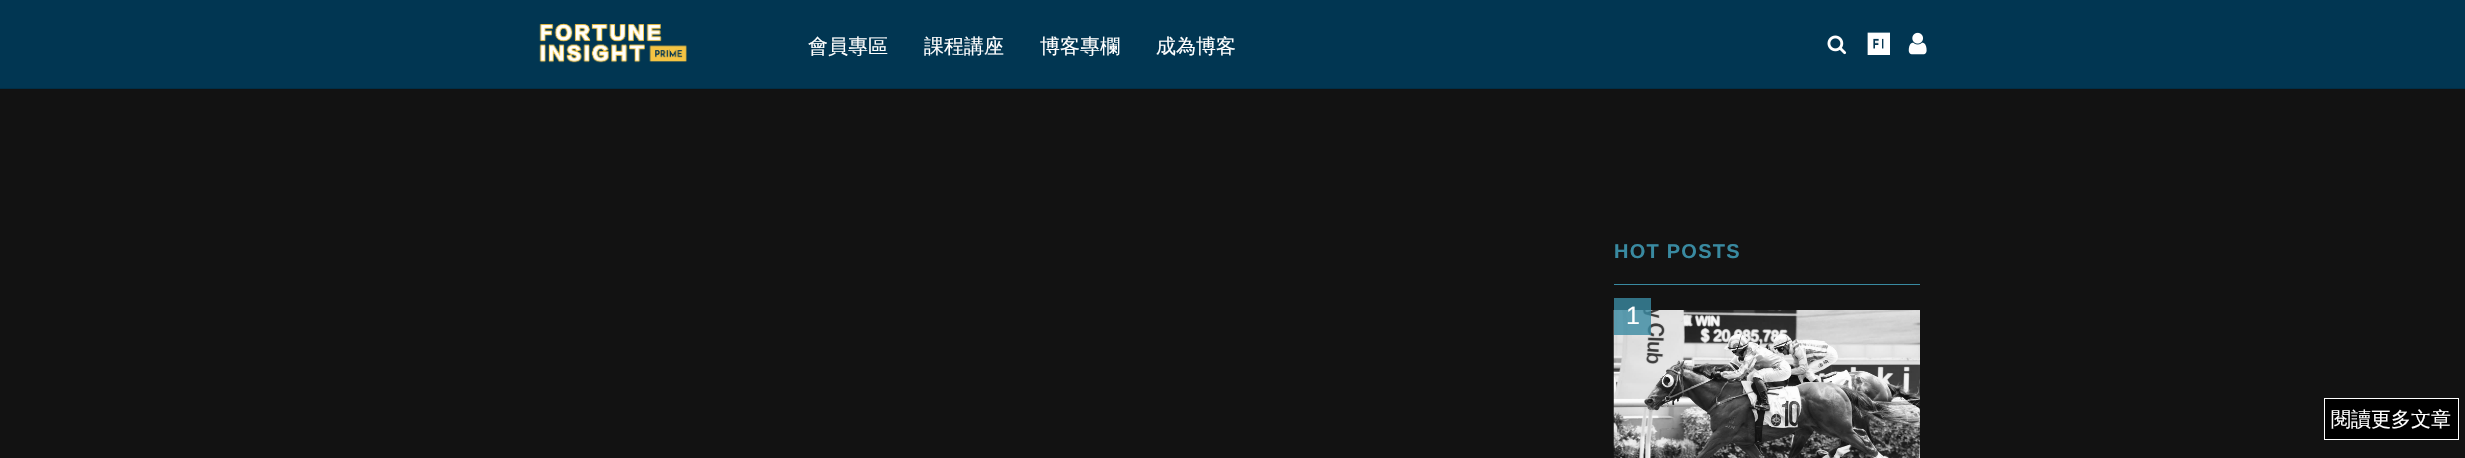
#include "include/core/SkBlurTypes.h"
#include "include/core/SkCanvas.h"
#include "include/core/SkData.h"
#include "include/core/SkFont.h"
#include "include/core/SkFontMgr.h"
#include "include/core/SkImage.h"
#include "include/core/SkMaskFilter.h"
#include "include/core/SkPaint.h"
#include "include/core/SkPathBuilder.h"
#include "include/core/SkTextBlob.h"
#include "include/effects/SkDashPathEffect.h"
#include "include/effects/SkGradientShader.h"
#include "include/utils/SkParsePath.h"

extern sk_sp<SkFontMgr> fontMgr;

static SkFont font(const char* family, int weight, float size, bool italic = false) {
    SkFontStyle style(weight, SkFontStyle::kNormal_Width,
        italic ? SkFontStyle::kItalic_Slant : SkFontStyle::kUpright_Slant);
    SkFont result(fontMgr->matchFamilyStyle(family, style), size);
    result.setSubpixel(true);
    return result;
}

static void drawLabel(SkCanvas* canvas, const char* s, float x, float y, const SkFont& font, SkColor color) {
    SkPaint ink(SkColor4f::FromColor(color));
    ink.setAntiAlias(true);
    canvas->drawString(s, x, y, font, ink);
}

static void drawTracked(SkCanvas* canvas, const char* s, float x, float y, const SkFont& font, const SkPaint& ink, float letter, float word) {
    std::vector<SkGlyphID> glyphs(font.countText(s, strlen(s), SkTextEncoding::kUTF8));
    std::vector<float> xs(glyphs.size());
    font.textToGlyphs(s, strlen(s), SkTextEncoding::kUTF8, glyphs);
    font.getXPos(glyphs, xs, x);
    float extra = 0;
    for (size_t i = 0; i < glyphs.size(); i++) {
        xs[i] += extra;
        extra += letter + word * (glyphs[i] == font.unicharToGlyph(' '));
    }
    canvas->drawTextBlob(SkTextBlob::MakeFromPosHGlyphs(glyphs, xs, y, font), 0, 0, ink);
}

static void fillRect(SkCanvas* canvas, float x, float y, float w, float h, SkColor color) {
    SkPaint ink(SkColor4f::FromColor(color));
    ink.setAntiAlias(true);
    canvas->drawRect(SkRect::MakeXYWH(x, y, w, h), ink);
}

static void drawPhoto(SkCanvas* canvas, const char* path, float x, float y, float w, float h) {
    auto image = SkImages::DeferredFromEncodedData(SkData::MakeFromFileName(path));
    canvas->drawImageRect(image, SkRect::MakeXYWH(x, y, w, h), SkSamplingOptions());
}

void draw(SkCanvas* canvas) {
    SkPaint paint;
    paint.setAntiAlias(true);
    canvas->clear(0xFF121212);
    fillRect(canvas, 0, 0, 2465, 88, 0xFF013652);
    fillRect(canvas, 0, 88, 2465, 1, 0xFF012E46);
    drawPhoto(canvas, "assets/img1.png", 539, 23, 148, 40);
    SkFont font1 = font("WenQuanYi Zen Hei", 500, 20);
    drawLabel(canvas, "會員專區", 808, 53, font1, 0xFFFFFFFF);
    drawLabel(canvas, "課程講座", 924, 53, font1, 0xFFFFFFFF);
    drawLabel(canvas, "博客專欄", 1040, 53, font1, 0xFFFFFFFF);
    drawLabel(canvas, "成為博客", 1156, 53, font1, 0xFFFFFFFF);
    drawPhoto(canvas, "assets/img2.png", 1827, 35, 20, 20);
    drawPhoto(canvas, "assets/img3.png", 1867, 32, 23, 23);
    drawPhoto(canvas, "assets/img4.png", 1908, 32, 19, 23);
    fillRect(canvas, 1614, 284, 306, 1, 0xFF398AA1);
    SkFont font2 = font("Liberation Sans", 700, 20);
    paint.setColor(0xFF398AA1);
    drawTracked(canvas, "HOT POSTS", 1614, 258, font2, paint, 1.25f, 0);
    drawPhoto(canvas, "assets/img5.png", 1613, 310, 307, 148);
    fillRect(canvas, 1614, 298, 37, 37, 0xCC398AA1);
    SkFont font3 = font("Liberation Sans", 400, 25);
    drawLabel(canvas, "1", 1626, 324, font3, 0xFFFFFFFF);
    paint.setColor(0xFF000000);
    canvas->drawRect(SkRect::MakeXYWH(2324.5f, 398.5f, 134, 41), paint);
    paint.setStroke(true);
    paint.setStrokeWidth(1);
    paint.setColor(0xFFFFFFFF);
    canvas->drawRect(SkRect::MakeXYWH(2324.5f, 398.5f, 134, 41), paint);
    drawLabel(canvas, "閱讀更多文章", 2331, 426, font1, 0xFFFFFFFF);
}
